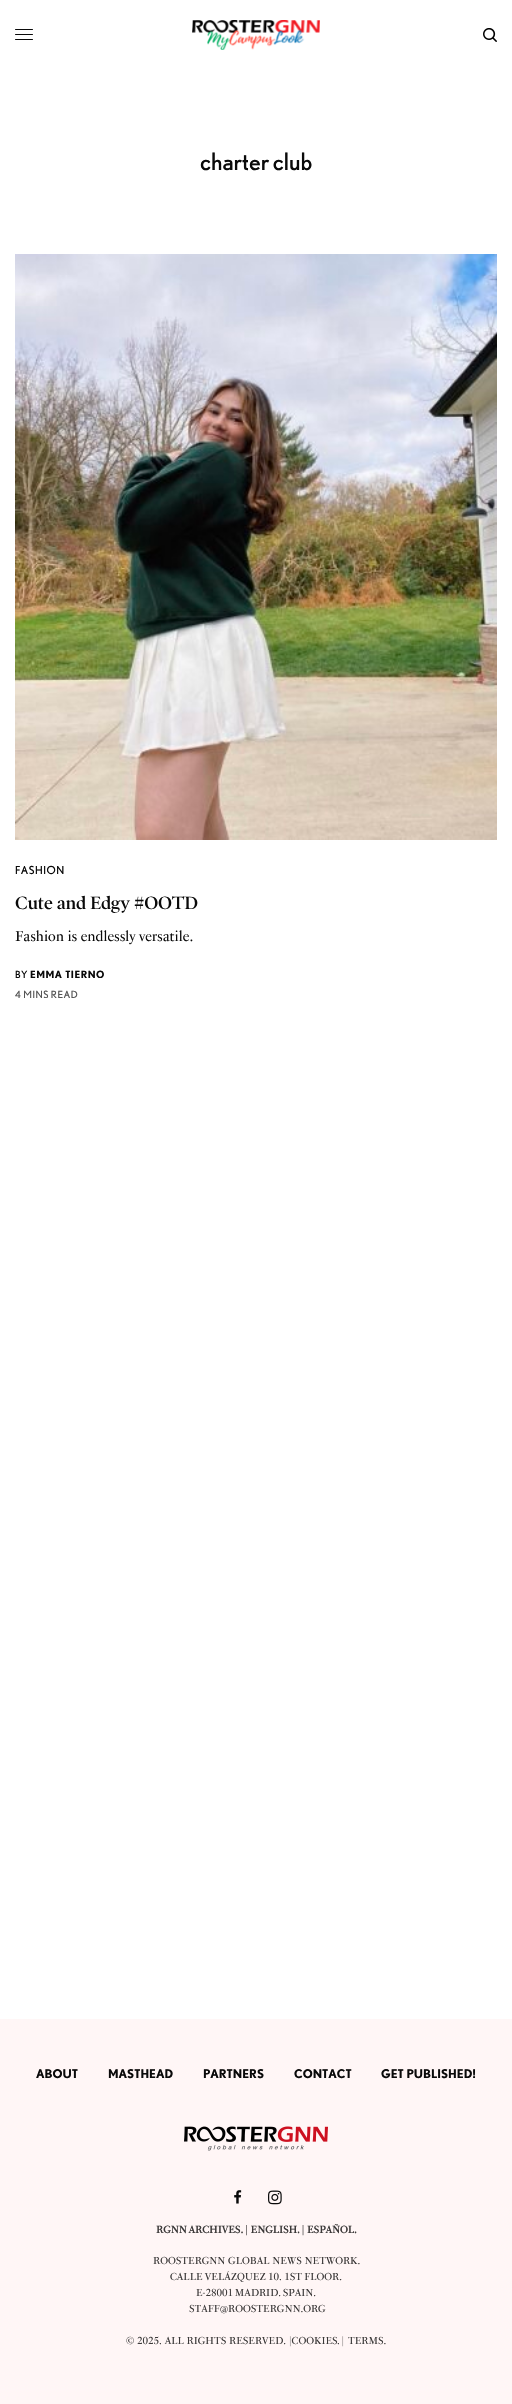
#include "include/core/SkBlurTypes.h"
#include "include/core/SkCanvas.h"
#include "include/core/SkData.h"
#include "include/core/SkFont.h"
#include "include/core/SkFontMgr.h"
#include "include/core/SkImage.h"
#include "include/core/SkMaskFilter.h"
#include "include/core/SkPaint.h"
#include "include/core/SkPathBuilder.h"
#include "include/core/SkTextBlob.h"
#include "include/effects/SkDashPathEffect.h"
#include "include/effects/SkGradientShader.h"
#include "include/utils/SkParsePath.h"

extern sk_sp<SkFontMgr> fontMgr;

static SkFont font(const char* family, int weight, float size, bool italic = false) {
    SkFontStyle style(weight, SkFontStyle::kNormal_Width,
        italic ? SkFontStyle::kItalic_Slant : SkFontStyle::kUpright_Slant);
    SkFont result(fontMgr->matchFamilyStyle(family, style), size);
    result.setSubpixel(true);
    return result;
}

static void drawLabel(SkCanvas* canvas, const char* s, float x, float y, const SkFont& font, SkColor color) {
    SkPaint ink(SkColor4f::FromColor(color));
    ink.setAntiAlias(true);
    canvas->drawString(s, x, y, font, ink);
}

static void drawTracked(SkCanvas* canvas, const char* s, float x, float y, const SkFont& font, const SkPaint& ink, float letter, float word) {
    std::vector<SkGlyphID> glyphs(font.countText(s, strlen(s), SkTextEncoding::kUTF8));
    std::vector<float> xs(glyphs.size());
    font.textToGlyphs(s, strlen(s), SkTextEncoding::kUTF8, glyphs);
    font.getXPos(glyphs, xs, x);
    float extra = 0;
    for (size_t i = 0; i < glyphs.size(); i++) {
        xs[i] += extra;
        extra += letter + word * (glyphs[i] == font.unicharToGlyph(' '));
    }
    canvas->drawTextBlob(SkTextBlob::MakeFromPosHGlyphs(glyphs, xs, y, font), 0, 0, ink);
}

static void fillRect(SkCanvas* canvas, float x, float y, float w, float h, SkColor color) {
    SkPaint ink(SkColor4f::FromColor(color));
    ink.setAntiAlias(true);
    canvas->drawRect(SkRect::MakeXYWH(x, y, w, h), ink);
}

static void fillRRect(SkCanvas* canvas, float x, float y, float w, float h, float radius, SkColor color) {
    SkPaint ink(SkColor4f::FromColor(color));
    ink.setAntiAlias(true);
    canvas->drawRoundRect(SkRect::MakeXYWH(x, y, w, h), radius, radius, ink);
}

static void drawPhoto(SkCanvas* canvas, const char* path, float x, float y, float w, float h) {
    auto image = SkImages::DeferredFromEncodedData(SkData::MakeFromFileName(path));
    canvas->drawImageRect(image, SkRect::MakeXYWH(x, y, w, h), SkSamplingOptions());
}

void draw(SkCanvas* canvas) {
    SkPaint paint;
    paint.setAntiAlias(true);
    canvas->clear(0xFFFFFFFF);
    fillRRect(canvas, 15, 29, 18, 1, 0.5f, 0xFF0A0A0A);
    fillRRect(canvas, 15, 34, 18, 1, 0.5f, 0xFF0A0A0A);
    fillRRect(canvas, 15, 39, 18, 1, 0.5f, 0xFF0A0A0A);
    drawPhoto(canvas, "assets/img1.png", 192, 20, 128, 30);
    drawPhoto(canvas, "assets/img2.png", 483, 28, 14, 14);
    SkFont font1 = font("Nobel", 400, 24);
    drawLabel(canvas, "charter club", 200, 170, font1, 0xFF0A0A0A);
    drawPhoto(canvas, "assets/img3.png", 15, 254, 482, 586);
    SkFont font2 = font("Nobel", 400, 11);
    paint.setColor(0xFF0A0A0A);
    drawTracked(canvas, "FASHION", 15, 874, font2, paint, 0.5f, 0);
    SkFont font3 = font("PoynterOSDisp", 600, 18);
    drawLabel(canvas, "Cute and Edgy #OOTD", 15, 909, font3, 0xFF0A0A0A);
    SkFont font4 = font("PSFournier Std", 400, 14);
    drawTracked(canvas, "Fashion is endlessly versatile.", 15, 941, font4, paint, 0, -0.5f);
    SkFont font5 = font("Nobel", 400, 10);
    drawTracked(canvas, "BY", 15, 978, font5, paint, 0.5f, 0);
    SkFont font6 = font("Nobel", 700, 10);
    drawTracked(canvas, "EMMA TIERNO", 30, 978, font6, paint, 0.5f, 0);
    paint.setColor(0xFF545454);
    drawTracked(canvas, "4 MINS READ", 15, 998, font5, paint, 0.5f, 0);
    fillRect(canvas, 0, 2019, 512, 385, 0xFFFFF6F6);
    SkFont font7 = font("Nobel", 700, 12);
    drawLabel(canvas, "ABOUT", 36, 2078, font7, 0xFF0A0A0A);
    drawLabel(canvas, "MASTHEAD", 108, 2078, font7, 0xFF0A0A0A);
    drawLabel(canvas, "PARTNERS", 203, 2078, font7, 0xFF0A0A0A);
    drawLabel(canvas, "CONTACT", 294, 2078, font7, 0xFF0A0A0A);
    drawLabel(canvas, "GET PUBLISHED!", 381, 2078, font7, 0xFF0A0A0A);
    drawPhoto(canvas, "assets/img4.png", 184, 2126, 144, 25);
    drawPhoto(canvas, "assets/img5.png", 234, 2190, 8, 14);
    drawPhoto(canvas, "assets/img6.png", 268, 2190, 14, 15);
    SkFont font8 = font("PSFournier Std", 700, 10);
    paint.setColor(0xFF3B3939);
    drawTracked(canvas, "RGNN ARCHIVES.", 156, 2233, font8, paint, 0, -1);
    drawLabel(canvas, "| ENGLISH", 245, 2233, font8, 0xFF3B3939);
    drawTracked(canvas, ". |", 297, 2233, font8, paint, 0, -1);
    drawLabel(canvas, "ESPAÑOL", 307, 2233, font8, 0xFF3B3939);
    drawLabel(canvas, ".", 354, 2233, font8, 0xFF3B3939);
    SkFont font9 = font("PSFournier Std", 400, 10);
    drawLabel(canvas, "ROOSTERGNN GLOBAL NEWS NETWORK.", 153, 2264, font9, 0xFF3B3939);
    drawTracked(canvas, "CALLE VELÁZQUEZ 10. 1ST FLOOR.", 170, 2280, font9, paint, 0, -0.5f);
    drawTracked(canvas, "E-28001 MADRID. SPAIN.", 196, 2296, font9, paint, 0, -1);
    drawLabel(canvas, "STAFF@ROOSTERGNN.ORG", 189, 2312, font9, 0xFF3B3939);
    drawLabel(canvas, "© 2025. ALL RIGHTS RESERVED. |COOKIES", 126, 2344, font9, 0xFF3B3939);
    drawTracked(canvas, ". |", 337, 2344, font9, paint, 0, -1);
    drawLabel(canvas, "TERMS.", 348, 2344, font9, 0xFF3B3939);
}
